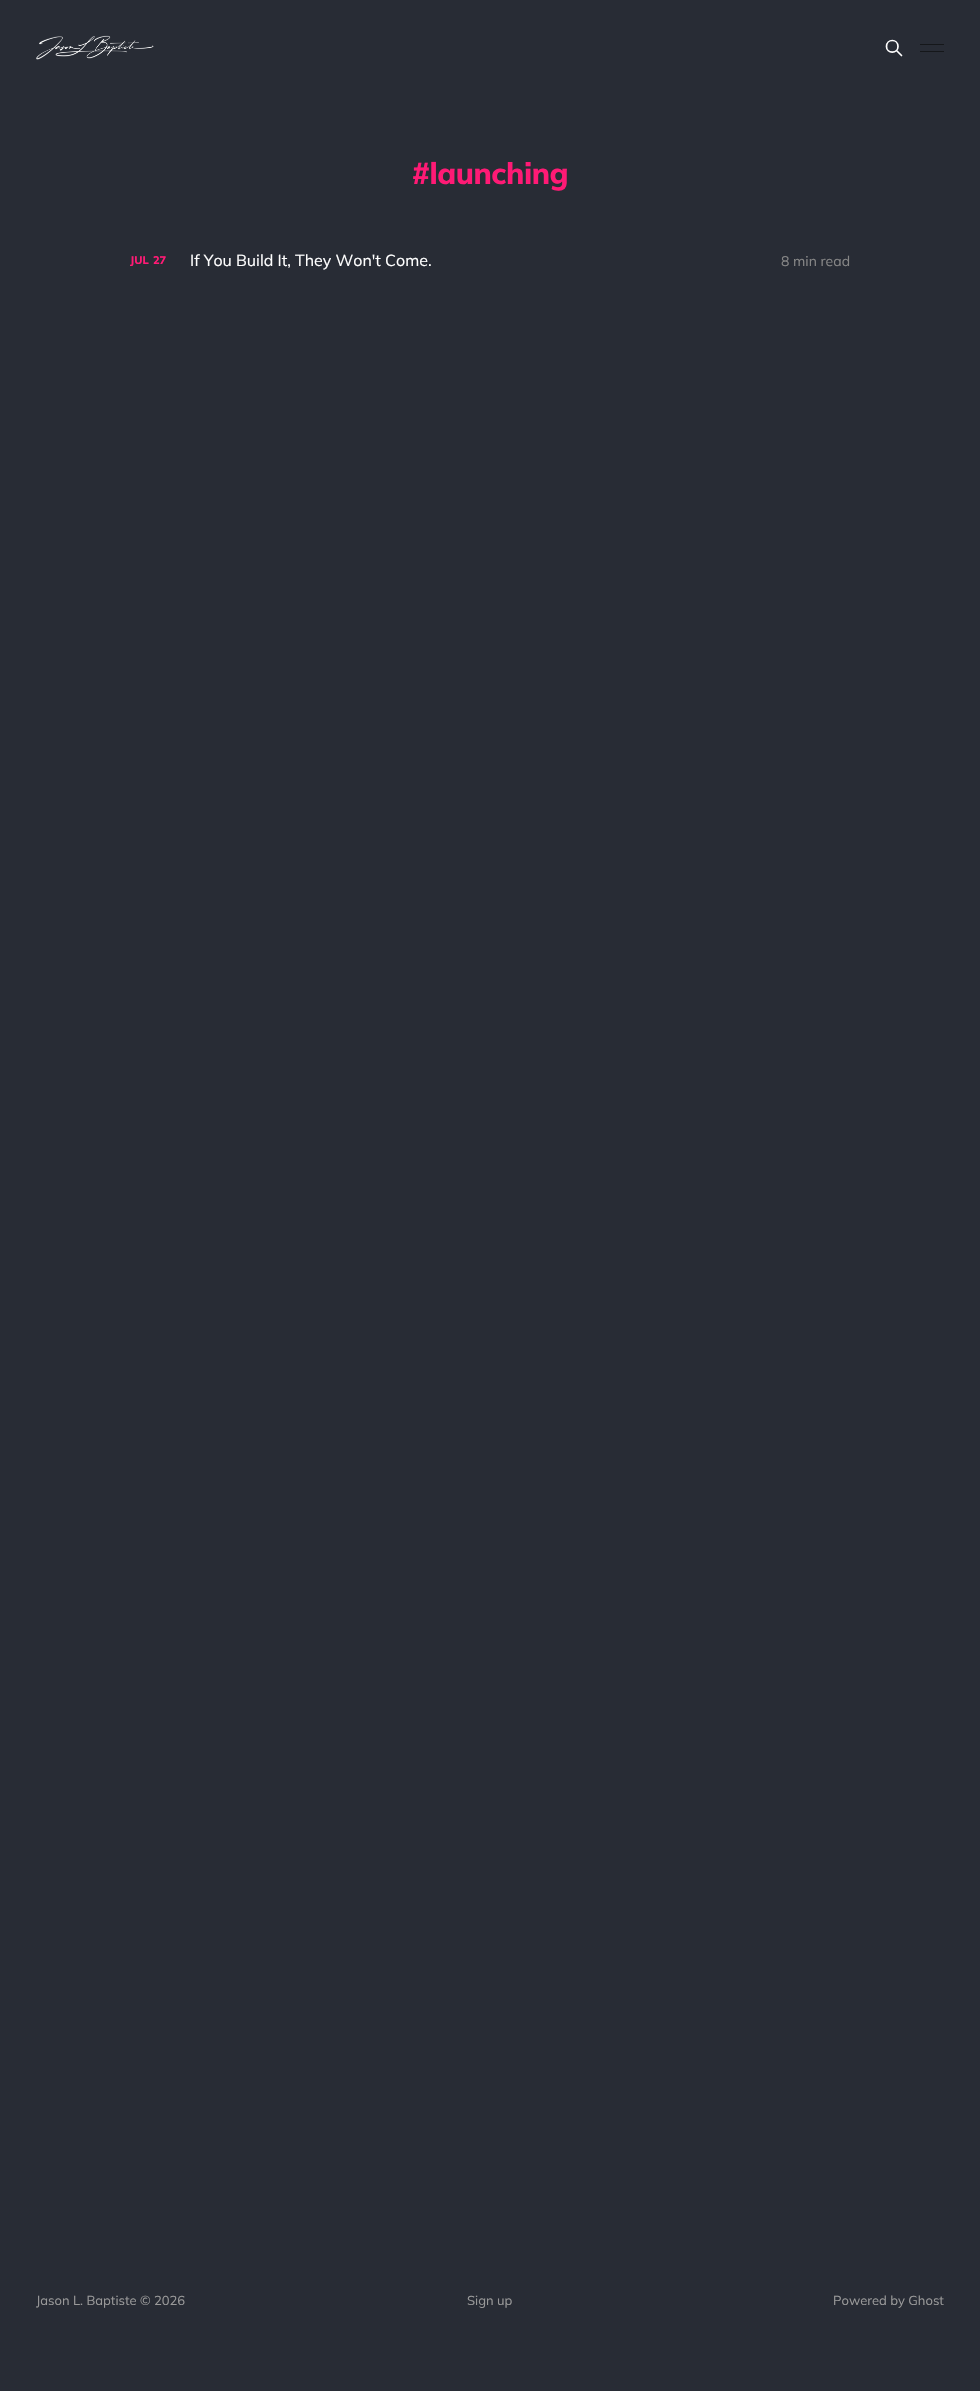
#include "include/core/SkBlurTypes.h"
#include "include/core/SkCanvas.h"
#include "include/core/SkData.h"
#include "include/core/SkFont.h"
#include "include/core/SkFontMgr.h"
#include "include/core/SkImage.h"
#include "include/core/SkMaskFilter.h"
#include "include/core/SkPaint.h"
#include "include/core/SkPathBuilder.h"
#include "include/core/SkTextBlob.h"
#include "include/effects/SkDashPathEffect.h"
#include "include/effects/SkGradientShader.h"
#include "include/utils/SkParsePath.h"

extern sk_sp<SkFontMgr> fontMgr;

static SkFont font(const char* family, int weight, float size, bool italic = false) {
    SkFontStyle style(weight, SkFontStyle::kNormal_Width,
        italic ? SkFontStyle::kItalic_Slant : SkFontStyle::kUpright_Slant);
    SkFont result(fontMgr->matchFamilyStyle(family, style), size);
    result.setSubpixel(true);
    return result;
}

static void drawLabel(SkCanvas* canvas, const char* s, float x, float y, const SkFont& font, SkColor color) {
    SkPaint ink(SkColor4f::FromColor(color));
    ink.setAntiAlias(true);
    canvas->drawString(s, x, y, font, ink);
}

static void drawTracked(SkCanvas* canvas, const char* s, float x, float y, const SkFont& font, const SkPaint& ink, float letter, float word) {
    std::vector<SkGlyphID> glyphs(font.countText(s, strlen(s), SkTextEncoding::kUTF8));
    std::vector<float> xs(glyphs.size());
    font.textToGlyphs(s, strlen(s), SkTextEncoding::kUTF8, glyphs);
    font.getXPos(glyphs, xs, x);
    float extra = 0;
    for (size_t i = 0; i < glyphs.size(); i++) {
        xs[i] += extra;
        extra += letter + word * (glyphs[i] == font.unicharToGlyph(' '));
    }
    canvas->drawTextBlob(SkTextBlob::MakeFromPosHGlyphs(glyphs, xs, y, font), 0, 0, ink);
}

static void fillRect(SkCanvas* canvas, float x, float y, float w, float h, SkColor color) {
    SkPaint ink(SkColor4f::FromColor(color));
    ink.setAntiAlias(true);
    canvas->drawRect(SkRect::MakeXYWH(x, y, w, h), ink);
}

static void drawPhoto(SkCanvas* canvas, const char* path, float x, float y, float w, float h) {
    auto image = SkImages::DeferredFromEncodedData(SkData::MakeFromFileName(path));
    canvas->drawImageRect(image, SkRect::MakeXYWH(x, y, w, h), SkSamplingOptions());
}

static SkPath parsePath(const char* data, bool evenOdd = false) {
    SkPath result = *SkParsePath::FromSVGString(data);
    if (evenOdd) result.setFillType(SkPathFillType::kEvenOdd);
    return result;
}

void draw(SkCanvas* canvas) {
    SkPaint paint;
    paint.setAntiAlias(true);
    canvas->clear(0xFF282C35);
    drawPhoto(canvas, "assets/img1.png", 36, 35, 118, 25);
    paint.setStroke(true);
    paint.setStrokeWidth(1.7f);
    paint.setStrokeCap(SkPaint::kRound_Cap);
    paint.setStrokeJoin(SkPaint::kRound_Join);
    paint.setColor(0xFFFFFFFF);
    canvas->drawPath(parsePath("M901.5 55.5L896.5 50.5M898 46.5C898 54 886.5 54 886.5 46.5C886.5 38.5 898 38.5 898 46.5Z"), paint);
    fillRect(canvas, 920, 44, 24, 1, 0xFF15171A);
    fillRect(canvas, 920, 51, 24, 1, 0xFF15171A);
    SkFont font1 = font("Mulish", 200, 30);
    paint.setStroke(false);
    paint.setColor(0xFFFF1A75);
    drawTracked(canvas, "#launching", 412, 184, font1, paint, -0.5f, 0);
    SkFont font2 = font("Mulish", 200, 11);
    drawLabel(canvas, "JUL", 130, 264, font2, 0xFFFF1A75);
    drawLabel(canvas, "27", 153, 264, font2, 0xFFFF1A75);
    SkFont font3 = font("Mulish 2", 200, 16);
    drawLabel(canvas, "If You Build It, They Won't Come.", 190, 266, font3, 0xFFFFFFFF);
    SkFont font4 = font("Mulish 2", 200, 14);
    drawLabel(canvas, "8 min read", 781, 266, font4, 0xFF868686);
    SkFont font5 = font("Mulish 2", 200, 13);
    drawLabel(canvas, "Jason L. Baptiste © 2026", 36, 2305, font5, 0xFF999999);
    drawLabel(canvas, "Sign up", 467, 2305, font5, 0xFF999999);
    drawLabel(canvas, "Powered by Ghost", 833, 2305, font5, 0xFF999999);
}
